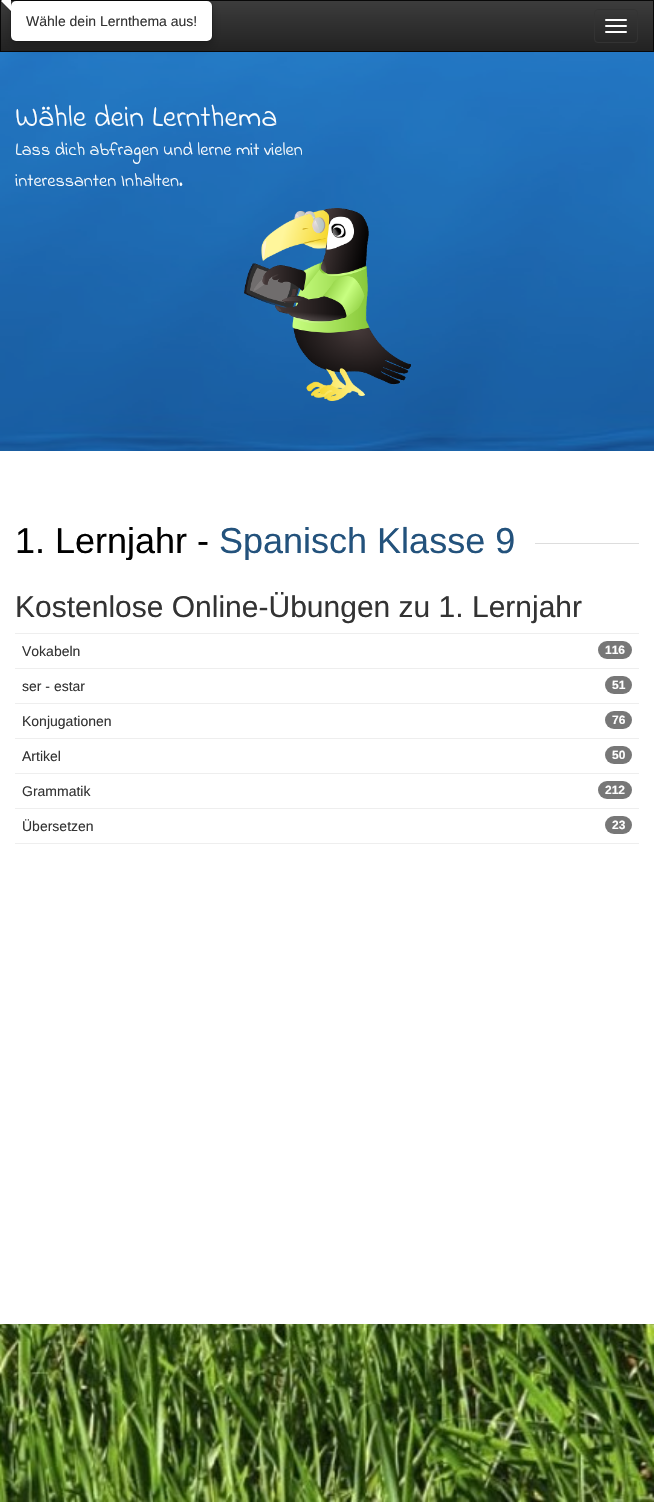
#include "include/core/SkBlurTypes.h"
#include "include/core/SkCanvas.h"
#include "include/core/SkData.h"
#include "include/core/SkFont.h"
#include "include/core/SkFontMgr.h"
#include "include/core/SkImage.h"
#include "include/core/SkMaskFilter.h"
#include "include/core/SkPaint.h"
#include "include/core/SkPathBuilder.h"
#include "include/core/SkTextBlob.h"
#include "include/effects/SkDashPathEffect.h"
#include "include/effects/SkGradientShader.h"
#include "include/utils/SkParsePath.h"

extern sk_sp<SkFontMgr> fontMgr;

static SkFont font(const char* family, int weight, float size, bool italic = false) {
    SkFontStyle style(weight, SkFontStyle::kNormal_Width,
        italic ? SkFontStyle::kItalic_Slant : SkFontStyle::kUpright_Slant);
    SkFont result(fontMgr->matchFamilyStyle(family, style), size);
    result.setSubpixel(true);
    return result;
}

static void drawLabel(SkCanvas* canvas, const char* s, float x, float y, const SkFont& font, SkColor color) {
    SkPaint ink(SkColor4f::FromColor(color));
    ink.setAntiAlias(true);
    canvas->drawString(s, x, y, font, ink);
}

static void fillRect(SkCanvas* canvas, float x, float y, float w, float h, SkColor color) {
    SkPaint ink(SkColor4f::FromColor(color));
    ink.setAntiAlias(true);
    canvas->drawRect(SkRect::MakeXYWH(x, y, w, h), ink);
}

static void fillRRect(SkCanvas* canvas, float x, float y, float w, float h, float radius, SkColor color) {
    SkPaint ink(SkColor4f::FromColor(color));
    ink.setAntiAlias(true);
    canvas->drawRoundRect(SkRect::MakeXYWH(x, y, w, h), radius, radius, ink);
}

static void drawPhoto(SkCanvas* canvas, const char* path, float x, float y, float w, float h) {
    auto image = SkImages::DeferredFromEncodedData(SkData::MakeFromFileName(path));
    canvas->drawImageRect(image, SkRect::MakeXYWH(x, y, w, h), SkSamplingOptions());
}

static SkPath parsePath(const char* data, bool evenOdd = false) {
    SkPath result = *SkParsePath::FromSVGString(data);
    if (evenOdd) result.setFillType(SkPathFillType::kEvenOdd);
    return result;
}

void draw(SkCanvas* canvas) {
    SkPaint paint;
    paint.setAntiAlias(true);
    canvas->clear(0xFFFFFFFF);
    drawPhoto(canvas, "assets/img1.png", 0, 1324, 654, 178);
    {
        const SkColor colors[] = {0xFF3C3C3C, 0xFF222222};
        const float stops[] = {0, 1};
        const SkPoint ends[] = {{327, 1}, {327, 51}};
        paint.setShader(SkGradientShader::MakeLinear(ends, colors, stops, 2, SkTileMode::kClamp));
        paint.setAlpha(255);
    }
    canvas->drawRect(SkRect::MakeXYWH(1, 1, 652, 50), paint);
    paint.setStroke(true);
    paint.setStrokeWidth(1);
    paint.setShader(nullptr);
    paint.setColor(0xFF080808);
    canvas->drawRect(SkRect::MakeXYWH(0.5f, 0.5f, 653, 51), paint);
    paint.setColor(0xFF333333);
    canvas->drawRoundRect(SkRect::MakeXYWH(594.5f, 9.5f, 43, 33), 3.5f, 3.5f, paint);
    fillRRect(canvas, 605, 19, 22, 2, 1, 0xFFFFFFFF);
    fillRRect(canvas, 605, 25, 22, 2, 1, 0xFFFFFFFF);
    fillRRect(canvas, 605, 31, 22, 2, 1, 0xFFFFFFFF);
    drawPhoto(canvas, "assets/img2.png", 0, 52, 654, 399);
    paint.setStroke(false);
    paint.setColor(0x33000000);
    paint.setMaskFilter(SkMaskFilter::MakeBlur(kNormal_SkBlurStyle, 5));
    canvas->drawRoundRect(SkRect::MakeXYWH(10, 5, 203, 42), 6, 6, paint);
    paint.setMaskFilter(nullptr);
    fillRRect(canvas, 11, 1, 201, 40, 5, 0xFFFFFFFF);
    paint.setStroke(true);
    canvas->drawRoundRect(SkRect::MakeXYWH(10.5f, 0.5f, 202, 41), 5.5f, 5.5f, paint);
    paint.setStroke(false);
    paint.setColor(0x40000000);
    canvas->drawPath(parsePath("M11-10V12L0 1Z"), paint);
    paint.setColor(0xFFFFFFFF);
    canvas->drawPath(parsePath("M11-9V11L1 1Z"), paint);
    SkFont font1 = font("Liberation Sans", 400, 14);
    drawLabel(canvas, "Wähle dein Lernthema aus!", 26, 26, font1, 0xFF333333);
    SkFont font2 = font("Indie Flower", 400, 30);
    drawLabel(canvas, "Wähle dein Lernthema", 15, 126, font2, 0xFFFFFFFF);
    SkFont font3 = font("Indie Flower", 400, 18.25f);
    drawLabel(canvas, "Lass dich abfragen und lerne mit vielen", 15, 155, font3, 0xFFFFFFFF);
    drawLabel(canvas, "interessanten Inhalten.", 15, 186, font3, 0xFFFFFFFF);
    drawPhoto(canvas, "assets/img3.png", 244, 208, 167, 193);
    canvas->save();
    canvas->clipRect(SkRect::MakeXYWH(15, 521, 624, 39));
    SkFont font4 = font("Liberation Sans", 400, 36);
    drawLabel(canvas, "1. Lernjahr -", 15, 553, font4, 0xFF000000);
    drawLabel(canvas, "Spanisch Klasse 9", 219, 553, font4, 0xFF23527C);
    canvas->restore();
    fillRect(canvas, 535, 543, 104, 1, 0xFFDDDDDD);
    SkFont font5 = font("Liberation Sans", 400, 30);
    drawLabel(canvas, "Kostenlose Online-Übungen zu 1. Lernjahr", 15, 617, font5, 0xFF333333);
    fillRect(canvas, 15, 633, 624, 1, 0xFFEEEEEE);
    fillRect(canvas, 15, 668, 624, 1, 0xFFEEEEEE);
    drawLabel(canvas, "Vokabeln", 22, 656, font1, 0xFF333333);
    fillRRect(canvas, 598, 641, 34, 18, 9, 0xFF777777);
    SkFont font6 = font("Liberation Sans", 700, 12);
    drawLabel(canvas, "116", 605, 654, font6, 0xFFFFFFFF);
    fillRect(canvas, 15, 703, 624, 1, 0xFFEEEEEE);
    drawLabel(canvas, "ser - estar", 22, 691, font1, 0xFF333333);
    fillRRect(canvas, 605, 676, 27, 18, 9, 0xFF777777);
    drawLabel(canvas, "51", 612, 689, font6, 0xFFFFFFFF);
    fillRect(canvas, 15, 738, 624, 1, 0xFFEEEEEE);
    drawLabel(canvas, "Konjugationen", 22, 726, font1, 0xFF333333);
    fillRRect(canvas, 605, 711, 27, 18, 9, 0xFF777777);
    drawLabel(canvas, "76", 612, 724, font6, 0xFFFFFFFF);
    fillRect(canvas, 15, 773, 624, 1, 0xFFEEEEEE);
    drawLabel(canvas, "Artikel", 22, 761, font1, 0xFF333333);
    fillRRect(canvas, 605, 746, 27, 18, 9, 0xFF777777);
    drawLabel(canvas, "50", 612, 759, font6, 0xFFFFFFFF);
    fillRect(canvas, 15, 808, 624, 1, 0xFFEEEEEE);
    drawLabel(canvas, "Grammatik", 22, 796, font1, 0xFF333333);
    fillRRect(canvas, 598, 781, 34, 18, 9, 0xFF777777);
    drawLabel(canvas, "212", 605, 794, font6, 0xFFFFFFFF);
    fillRect(canvas, 15, 843, 624, 1, 0xFFEEEEEE);
    drawLabel(canvas, "Übersetzen", 22, 831, font1, 0xFF333333);
    fillRRect(canvas, 605, 816, 27, 18, 9, 0xFF777777);
    drawLabel(canvas, "23", 612, 829, font6, 0xFFFFFFFF);
}
